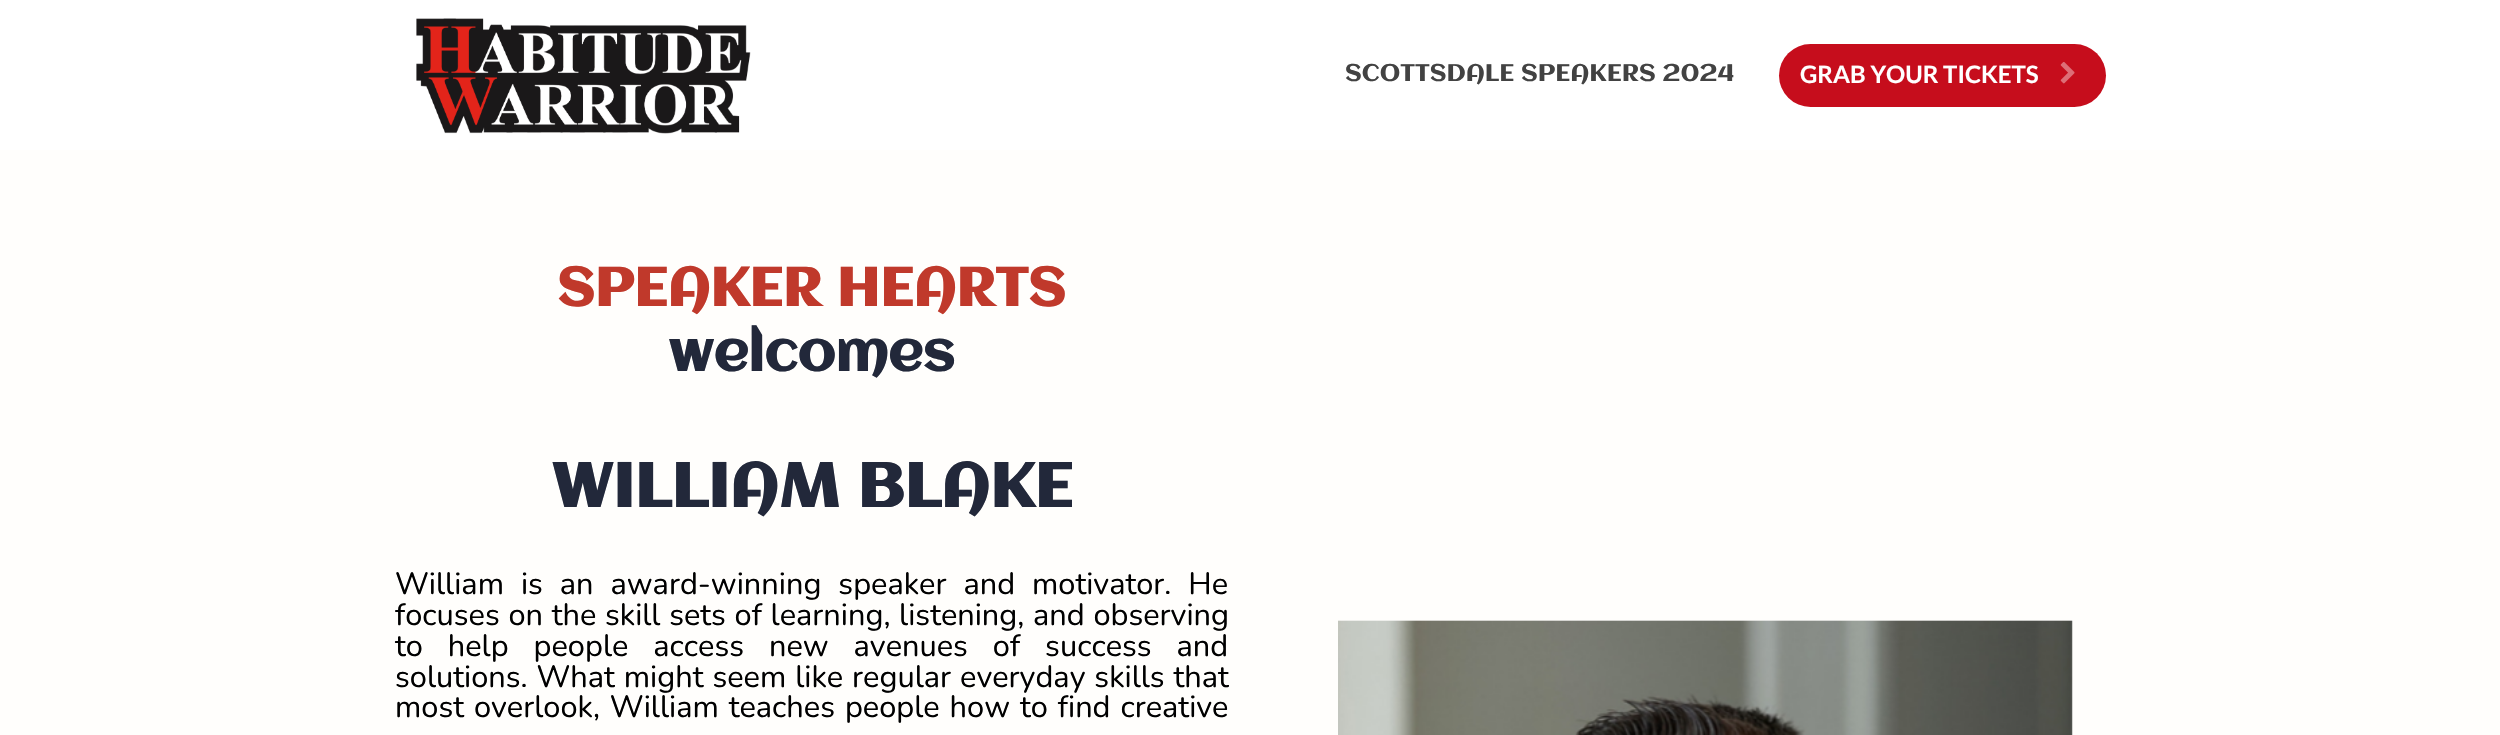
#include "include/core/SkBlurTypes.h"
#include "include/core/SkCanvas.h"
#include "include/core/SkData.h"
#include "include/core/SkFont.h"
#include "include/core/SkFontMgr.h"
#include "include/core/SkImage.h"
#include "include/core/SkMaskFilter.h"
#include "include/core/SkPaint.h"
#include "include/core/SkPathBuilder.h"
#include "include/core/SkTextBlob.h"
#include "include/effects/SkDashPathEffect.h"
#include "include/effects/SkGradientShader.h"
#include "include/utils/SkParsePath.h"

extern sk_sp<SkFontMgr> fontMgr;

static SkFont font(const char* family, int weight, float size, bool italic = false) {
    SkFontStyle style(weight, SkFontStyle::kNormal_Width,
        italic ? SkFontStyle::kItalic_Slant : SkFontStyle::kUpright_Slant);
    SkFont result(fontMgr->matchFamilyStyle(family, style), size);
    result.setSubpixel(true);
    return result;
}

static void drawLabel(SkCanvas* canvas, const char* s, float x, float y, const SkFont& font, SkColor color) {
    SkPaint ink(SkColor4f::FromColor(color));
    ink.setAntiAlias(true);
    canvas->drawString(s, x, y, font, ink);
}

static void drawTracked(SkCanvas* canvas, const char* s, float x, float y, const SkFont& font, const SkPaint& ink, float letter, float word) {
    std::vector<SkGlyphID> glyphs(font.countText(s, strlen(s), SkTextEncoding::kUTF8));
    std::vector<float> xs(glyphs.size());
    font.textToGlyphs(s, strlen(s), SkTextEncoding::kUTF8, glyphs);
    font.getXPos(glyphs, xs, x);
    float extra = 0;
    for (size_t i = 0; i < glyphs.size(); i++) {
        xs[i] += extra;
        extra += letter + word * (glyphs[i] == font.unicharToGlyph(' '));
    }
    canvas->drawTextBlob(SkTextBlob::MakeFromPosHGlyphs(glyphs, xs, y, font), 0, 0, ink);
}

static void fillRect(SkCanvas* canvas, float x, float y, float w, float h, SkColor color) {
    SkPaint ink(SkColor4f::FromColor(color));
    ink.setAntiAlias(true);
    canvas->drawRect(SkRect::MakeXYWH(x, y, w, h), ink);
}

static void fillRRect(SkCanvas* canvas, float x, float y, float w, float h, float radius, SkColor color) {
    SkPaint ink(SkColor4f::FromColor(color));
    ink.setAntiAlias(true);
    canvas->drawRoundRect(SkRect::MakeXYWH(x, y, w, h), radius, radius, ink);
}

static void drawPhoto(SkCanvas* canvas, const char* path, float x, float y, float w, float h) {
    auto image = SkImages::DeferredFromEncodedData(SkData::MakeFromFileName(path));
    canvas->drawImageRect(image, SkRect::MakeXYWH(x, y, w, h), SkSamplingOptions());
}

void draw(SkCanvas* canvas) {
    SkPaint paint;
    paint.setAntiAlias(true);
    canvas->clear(0xFFFFFFFF);
    drawPhoto(canvas, "assets/img1.png", 416, 18, 335, 116);
    SkFont font1 = font("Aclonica", 400, 24);
    drawLabel(canvas, "SCOTTSDALE SPEAKERS 2024", 1345, 81, font1, 0xFF424242);
    fillRRect(canvas, 1779, 44, 327, 63, 31.5f, 0xFFC60D1C);
    SkFont font2 = font("Lato", 700, 24);
    drawLabel(canvas, "GRAB YOUR TICKETS", 1800, 83, font2, 0xFFFFFFFF);
    drawPhoto(canvas, "assets/img2.png", 2060, 62, 15, 22);
    fillRect(canvas, 0, 150, 2500, 585, 0xFFFFFEFC);
    SkFont font3 = font("Aclonica", 700, 53.75f);
    drawLabel(canvas, "SPEAKER HEARTS", 557, 306, font3, 0xFFC0392B);
    drawLabel(canvas, "welcomes", 668, 371, font3, 0xFF22283A);
    SkFont font4 = font("Aclonica", 700, 61.5f);
    drawLabel(canvas, "WILLIAM BLAKE", 551, 507, font4, 0xFF22283A);
    SkFont font5 = font("Nunito", 400, 30.75f);
    paint.setColor(0xFF000000);
    drawTracked(canvas, "William is an award-winning speaker and motivator. He", 395, 594, font5, paint, 0, 9);
    drawTracked(canvas, "focuses on the skill sets of learning, listening, and observing", 395, 625, font5, paint, 0, 0.75f);
    drawTracked(canvas, "to help people access new avenues of success and", 395, 656, font5, paint, 0, 17);
    drawTracked(canvas, "solutions. What might seem like regular everyday skills that", 395, 687, font5, paint, 0, 1);
    drawTracked(canvas, "most overlook, William teaches people how to find creative", 395, 717, font5, paint, 0, 2);
    drawPhoto(canvas, "assets/img3.png", 1338, 620, 735, 115);
}
